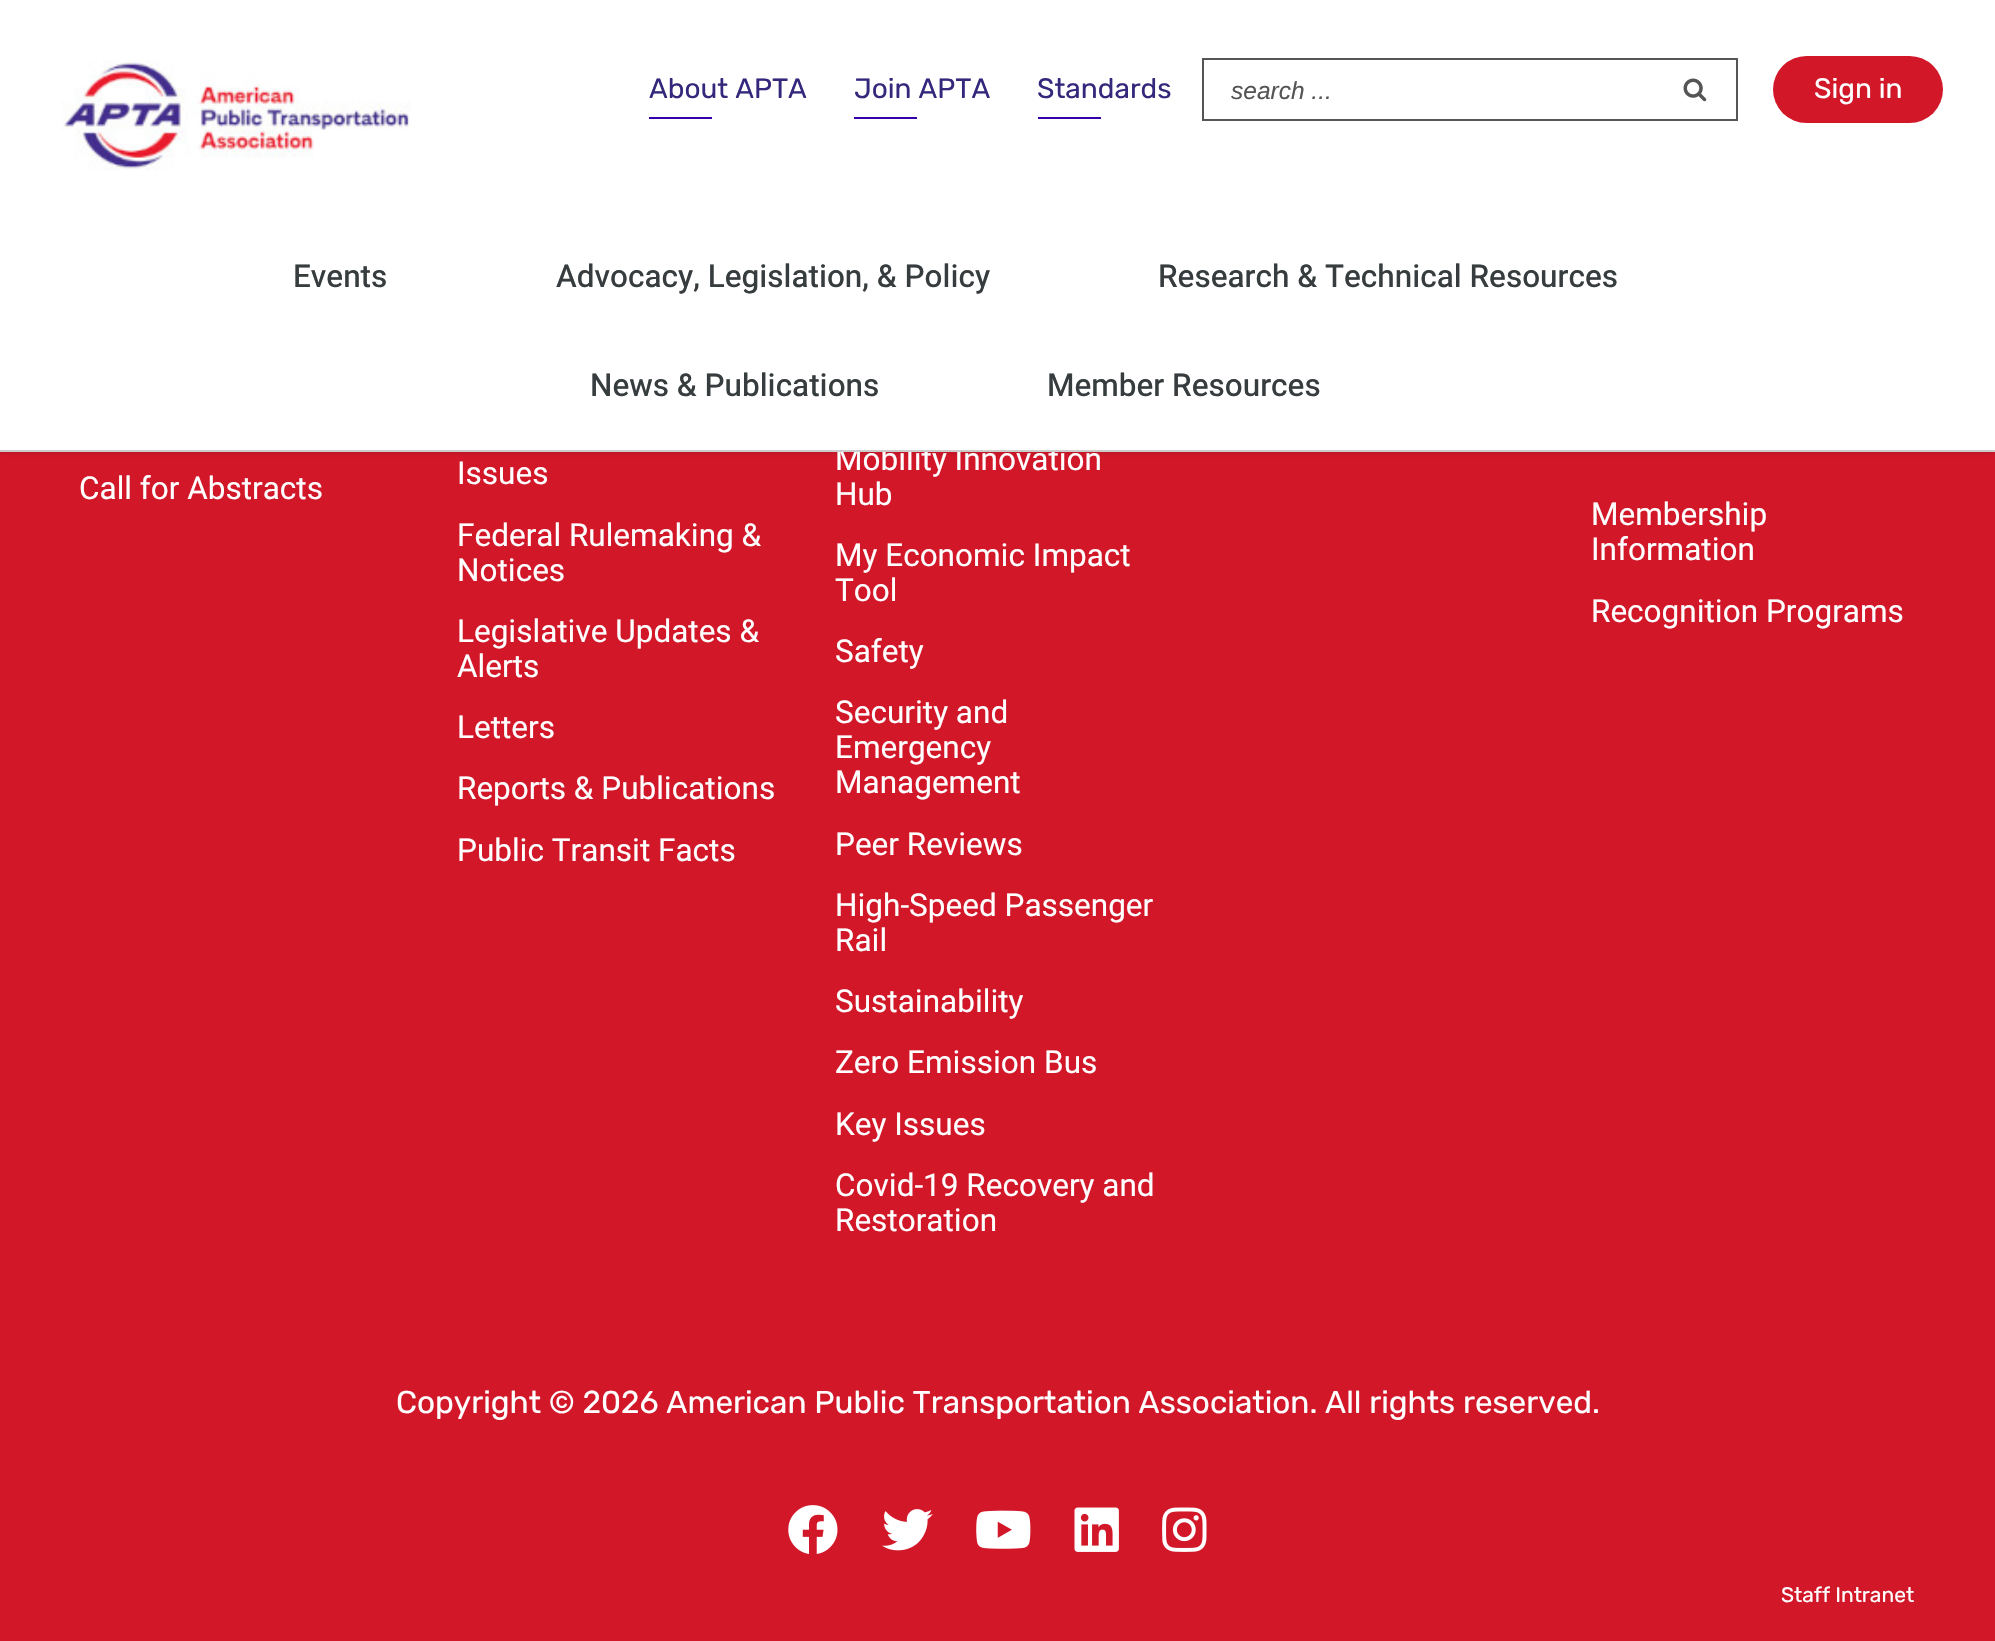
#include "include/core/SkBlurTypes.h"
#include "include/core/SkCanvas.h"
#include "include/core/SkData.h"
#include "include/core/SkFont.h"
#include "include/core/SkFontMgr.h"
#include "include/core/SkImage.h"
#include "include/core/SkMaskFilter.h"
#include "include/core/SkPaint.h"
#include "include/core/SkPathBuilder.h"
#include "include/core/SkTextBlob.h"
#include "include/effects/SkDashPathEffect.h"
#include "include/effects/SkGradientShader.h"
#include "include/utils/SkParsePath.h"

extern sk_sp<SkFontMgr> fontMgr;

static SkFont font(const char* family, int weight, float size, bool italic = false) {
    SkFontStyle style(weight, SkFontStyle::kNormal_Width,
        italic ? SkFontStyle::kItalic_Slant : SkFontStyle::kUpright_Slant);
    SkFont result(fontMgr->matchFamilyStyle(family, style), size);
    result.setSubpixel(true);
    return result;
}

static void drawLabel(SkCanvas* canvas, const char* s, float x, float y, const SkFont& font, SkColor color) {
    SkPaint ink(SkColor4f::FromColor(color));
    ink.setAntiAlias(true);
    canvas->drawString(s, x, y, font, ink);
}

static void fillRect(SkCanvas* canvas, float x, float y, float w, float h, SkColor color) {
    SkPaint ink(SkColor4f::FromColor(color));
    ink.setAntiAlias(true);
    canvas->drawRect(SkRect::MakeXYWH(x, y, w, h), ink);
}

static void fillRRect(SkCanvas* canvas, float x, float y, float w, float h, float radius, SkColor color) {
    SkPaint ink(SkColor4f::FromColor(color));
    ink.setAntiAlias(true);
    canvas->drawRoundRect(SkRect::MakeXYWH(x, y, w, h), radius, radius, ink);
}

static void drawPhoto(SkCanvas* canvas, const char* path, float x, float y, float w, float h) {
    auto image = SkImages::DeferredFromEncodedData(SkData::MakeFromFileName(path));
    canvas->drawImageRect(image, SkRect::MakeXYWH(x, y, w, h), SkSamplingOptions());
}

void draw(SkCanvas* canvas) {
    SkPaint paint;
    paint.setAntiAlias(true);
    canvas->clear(0xFFD21729);
    paint.setColor(0x1F000000);
    paint.setMaskFilter(SkMaskFilter::MakeBlur(kNormal_SkBlurStyle, 2.5f));
    canvas->drawRect(SkRect::MakeXYWH(0, 2, 1995, 451), paint);
    paint.setMaskFilter(nullptr);
    fillRect(canvas, 0, 0, 1995, 450, 0xFFFFFFFF);
    drawPhoto(canvas, "assets/img1.png", 61, 60, 350, 111);
    SkFont font1 = font("Rubik", 300, 28);
    drawLabel(canvas, "About APTA", 649, 98, font1, 0xFF33287C);
    fillRect(canvas, 649, 117, 63, 2, 0xFF3400AE);
    drawLabel(canvas, "Join APTA", 854, 98, font1, 0xFF33287C);
    fillRect(canvas, 854, 117, 63, 2, 0xFF3400AE);
    drawLabel(canvas, "Standards", 1037, 98, font1, 0xFF33287C);
    fillRect(canvas, 1038, 117, 63, 2, 0xFF3400AE);
    paint.setStroke(true);
    paint.setStrokeWidth(2);
    paint.setColor(0xFF555555);
    canvas->drawRect(SkRect::MakeXYWH(1203, 59, 534, 61), paint);
    SkFont font2 = font("Liberation Sans", 400, 24.5f, true);
    drawLabel(canvas, "search ...", 1231, 99, font2, 0xFF555555);
    drawPhoto(canvas, "assets/img2.png", 1683, 78, 24, 24);
    fillRRect(canvas, 1773, 56, 170, 67, 33.5f, 0xFFD21729);
    drawLabel(canvas, "Sign in", 1814, 98, font1, 0xFFFFFFFF);
    SkFont font3 = font("Heebo", 400, 31.5f);
    drawLabel(canvas, "Mobility Innovation", 835, 470, font3, 0xFFFFFFFF);
    fillRect(canvas, 0, 450, 1995, 2, 0xFFCCCCCC);
    SkFont font4 = font("Heebo", 500, 31.5f);
    drawLabel(canvas, "Events", 293, 287, font4, 0xFF373D3F);
    drawLabel(canvas, "Advocacy, Legislation, & Policy", 556, 287, font4, 0xFF373D3F);
    drawLabel(canvas, "Research & Technical Resources", 1158, 287, font4, 0xFF373D3F);
    drawLabel(canvas, "News & Publications", 590, 396, font4, 0xFF373D3F);
    drawLabel(canvas, "Member Resources", 1047, 396, font4, 0xFF373D3F);
    drawLabel(canvas, "Call for Abstracts", 79, 499, font3, 0xFFFFFFFF);
    drawLabel(canvas, "Issues", 457, 484, font3, 0xFFFFFFFF);
    drawLabel(canvas, "Federal Rulemaking &", 457, 546, font3, 0xFFFFFFFF);
    drawLabel(canvas, "Notices", 457, 581, font3, 0xFFFFFFFF);
    drawLabel(canvas, "Legislative Updates &", 457, 642, font3, 0xFFFFFFFF);
    drawLabel(canvas, "Alerts", 457, 677, font3, 0xFFFFFFFF);
    drawLabel(canvas, "Letters", 457, 738, font3, 0xFFFFFFFF);
    drawLabel(canvas, "Reports & Publications", 457, 799, font3, 0xFFFFFFFF);
    drawLabel(canvas, "Public Transit Facts", 457, 861, font3, 0xFFFFFFFF);
    drawLabel(canvas, "Hub", 835, 505, font3, 0xFFFFFFFF);
    drawLabel(canvas, "My Economic Impact", 835, 566, font3, 0xFFFFFFFF);
    drawLabel(canvas, "Tool", 835, 601, font3, 0xFFFFFFFF);
    drawLabel(canvas, "Safety", 835, 662, font3, 0xFFFFFFFF);
    drawLabel(canvas, "Security and", 835, 723, font3, 0xFFFFFFFF);
    drawLabel(canvas, "Emergency", 835, 758, font3, 0xFFFFFFFF);
    drawLabel(canvas, "Management", 835, 793, font3, 0xFFFFFFFF);
    drawLabel(canvas, "Peer Reviews", 835, 855, font3, 0xFFFFFFFF);
    drawLabel(canvas, "High-Speed Passenger", 835, 916, font3, 0xFFFFFFFF);
    drawLabel(canvas, "Rail", 835, 951, font3, 0xFFFFFFFF);
    drawLabel(canvas, "Sustainability", 835, 1012, font3, 0xFFFFFFFF);
    drawLabel(canvas, "Zero Emission Bus", 835, 1073, font3, 0xFFFFFFFF);
    drawLabel(canvas, "Key Issues", 835, 1135, font3, 0xFFFFFFFF);
    drawLabel(canvas, "Covid-19 Recovery and", 835, 1196, font3, 0xFFFFFFFF);
    drawLabel(canvas, "Restoration", 835, 1231, font3, 0xFFFFFFFF);
    drawLabel(canvas, "Membership", 1591, 525, font3, 0xFFFFFFFF);
    drawLabel(canvas, "Information", 1591, 560, font3, 0xFFFFFFFF);
    drawLabel(canvas, "Recognition Programs", 1591, 622, font3, 0xFFFFFFFF);
    SkFont font5 = font("Rubik", 300, 31.5f);
    drawLabel(canvas, "Copyright © 2026 American Public Transportation Association. All rights reserved.", 396, 1413, font5, 0xFFFFFFFF);
    drawPhoto(canvas, "assets/img3.png", 788, 1505, 50, 49);
    drawPhoto(canvas, "assets/img4.png", 882, 1509, 51, 42);
    drawPhoto(canvas, "assets/img5.png", 976, 1510, 55, 39);
    drawPhoto(canvas, "assets/img6.png", 1074, 1507, 45, 45);
    drawPhoto(canvas, "assets/img7.png", 1162, 1507, 45, 45);
    SkFont font6 = font("Rubik", 300, 21);
    drawLabel(canvas, "Staff Intranet", 1781, 1602, font6, 0xFFFFFFFF);
}
